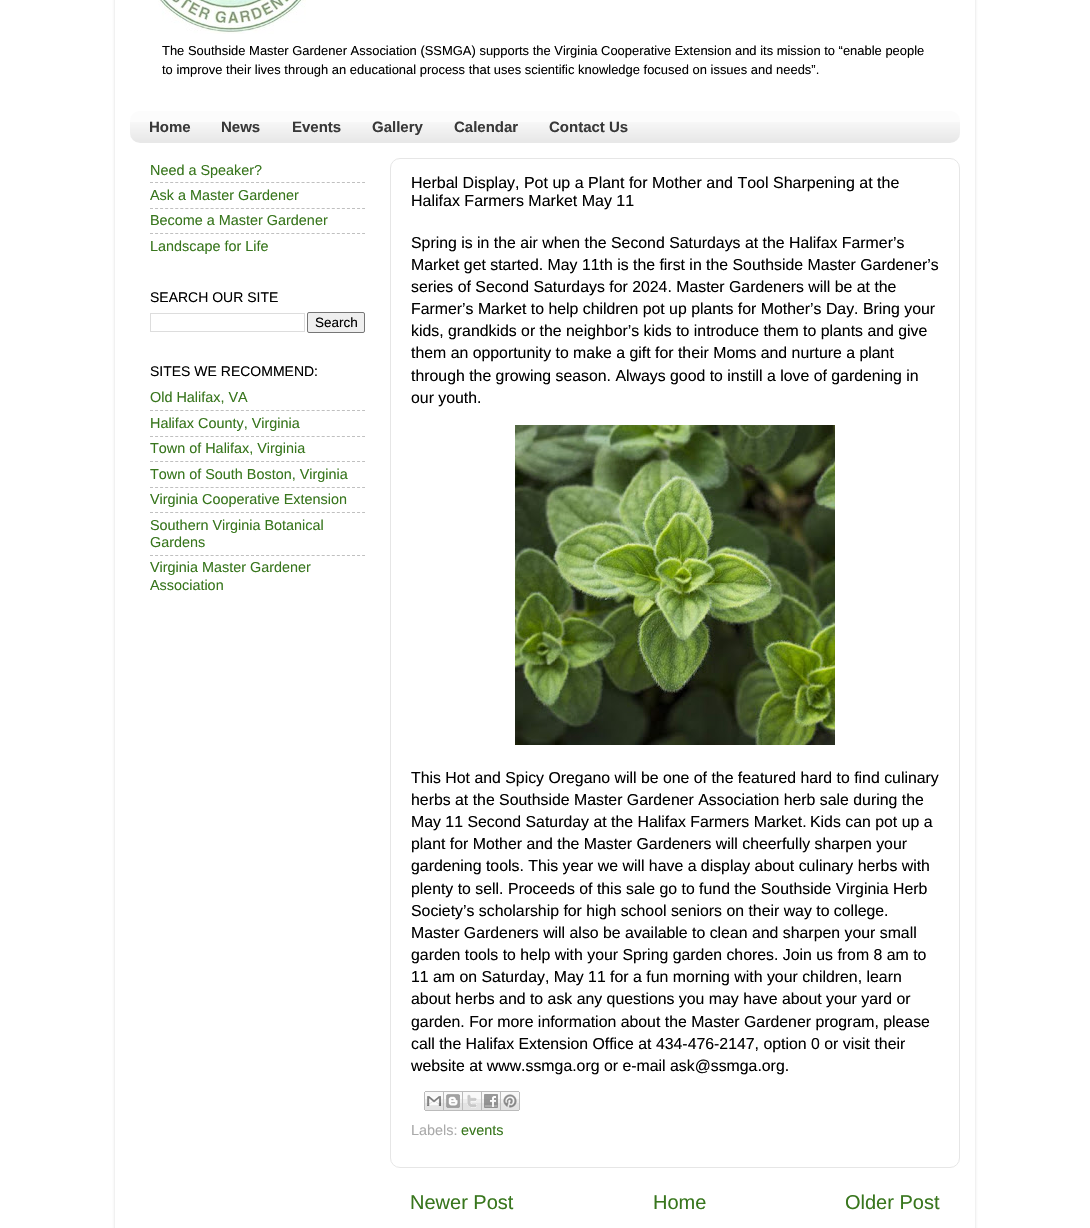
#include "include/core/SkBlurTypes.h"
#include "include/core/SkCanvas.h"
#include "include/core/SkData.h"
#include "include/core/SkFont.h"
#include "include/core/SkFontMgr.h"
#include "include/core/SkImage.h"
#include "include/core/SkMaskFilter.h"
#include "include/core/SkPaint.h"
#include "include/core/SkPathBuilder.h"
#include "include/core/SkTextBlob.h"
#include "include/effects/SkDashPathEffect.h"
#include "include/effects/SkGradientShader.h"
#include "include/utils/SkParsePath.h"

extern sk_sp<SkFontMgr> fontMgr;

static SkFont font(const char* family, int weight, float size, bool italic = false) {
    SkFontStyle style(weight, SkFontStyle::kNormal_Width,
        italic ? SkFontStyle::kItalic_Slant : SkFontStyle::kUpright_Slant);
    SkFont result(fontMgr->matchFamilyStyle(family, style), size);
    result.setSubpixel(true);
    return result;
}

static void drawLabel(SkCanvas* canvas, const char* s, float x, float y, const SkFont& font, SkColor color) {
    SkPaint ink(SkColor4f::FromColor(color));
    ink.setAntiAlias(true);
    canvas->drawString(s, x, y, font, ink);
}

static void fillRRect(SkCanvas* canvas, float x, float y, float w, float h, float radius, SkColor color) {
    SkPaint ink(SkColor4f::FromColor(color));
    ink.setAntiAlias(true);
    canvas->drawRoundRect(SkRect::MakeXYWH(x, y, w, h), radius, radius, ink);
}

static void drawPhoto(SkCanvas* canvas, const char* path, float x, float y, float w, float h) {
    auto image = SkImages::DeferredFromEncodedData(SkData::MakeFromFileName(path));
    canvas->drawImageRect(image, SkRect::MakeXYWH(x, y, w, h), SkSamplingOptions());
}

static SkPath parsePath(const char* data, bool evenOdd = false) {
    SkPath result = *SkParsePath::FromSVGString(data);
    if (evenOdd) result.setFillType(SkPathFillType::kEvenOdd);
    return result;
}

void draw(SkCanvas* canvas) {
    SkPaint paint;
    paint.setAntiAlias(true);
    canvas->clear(0xFFFFFFFF);
    canvas->save();
    canvas->clipPath(parsePath("M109 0H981V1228H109ZM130-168H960C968.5-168 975-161.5 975-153V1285C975 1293.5 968.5 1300 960 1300H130C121.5 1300 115 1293.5 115 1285V-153C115-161.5 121.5-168 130-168Z", true), true);
    paint.setColor(0x26000000);
    paint.setMaskFilter(SkMaskFilter::MakeBlur(kNormal_SkBlurStyle, 1.5f));
    canvas->drawRoundRect(SkRect::MakeXYWH(115, -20, 860, 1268), 15, 15, paint);
    paint.setMaskFilter(nullptr);
    canvas->restore();
    drawPhoto(canvas, "assets/img1.png", 158, 0, 148, 34);
    SkFont font1 = font("Arimo", 400, 12.95f);
    drawLabel(canvas, "The Southside Master Gardener Association (SSMGA) supports the Virginia Cooperative Extension and its mission to “enable people", 162, 55, font1, 0xFF000000);
    drawLabel(canvas, "to improve their lives through an educational process that uses scientific knowledge focused on issues and needs”.", 162, 74, font1, 0xFF000000);
    fillRRect(canvas, 130, 111, 830, 32, 10, 0xFFFCFCFC);
    drawPhoto(canvas, "assets/img2.png", 130, 122, 830, 21);
    SkFont font2 = font("Liberation Sans", 700, 15);
    drawLabel(canvas, "Home", 149, 132, font2, 0xFF393939);
    drawLabel(canvas, "News", 221, 132, font2, 0xFF393939);
    drawLabel(canvas, "Events", 292, 132, font2, 0xFF393939);
    drawLabel(canvas, "Gallery", 372, 132, font2, 0xFF393939);
    drawLabel(canvas, "Calendar", 454, 132, font2, 0xFF393939);
    drawLabel(canvas, "Contact Us", 549, 132, font2, 0xFF393939);
    SkFont font3 = font("Arimo", 400, 14.4f);
    drawLabel(canvas, "Need a Speaker?", 150, 175, font3, 0xFF38761D);
    paint.setStroke(true);
    paint.setStrokeWidth(1);
    paint.setColor(0xFFC0C0C0);
    paint.setPathEffect(SkDashPathEffect::Make({{3, 2.05f}}, 0));
    canvas->drawPath(parsePath("M150 182.5H365"), paint);
    paint.setPathEffect(nullptr);
    drawLabel(canvas, "Ask a Master Gardener", 150, 200, font3, 0xFF38761D);
    paint.setPathEffect(SkDashPathEffect::Make({{3, 2.05f}}, 0));
    canvas->drawPath(parsePath("M150 208.5H365"), paint);
    paint.setPathEffect(nullptr);
    drawLabel(canvas, "Become a Master Gardener", 150, 225, font3, 0xFF38761D);
    paint.setPathEffect(SkDashPathEffect::Make({{3, 2.05f}}, 0));
    canvas->drawPath(parsePath("M150 233.5H365"), paint);
    paint.setPathEffect(nullptr);
    drawLabel(canvas, "Landscape for Life", 150, 251, font3, 0xFF38761D);
    SkFont font4 = font("Liberation Sans", 400, 14);
    drawLabel(canvas, "SEARCH OUR SITE", 150, 302, font4, 0xFF000000);
    paint.setColor(0xFFDDDDDD);
    canvas->drawRect(SkRect::MakeXYWH(150.5f, 313.5f, 154, 18), paint);
    paint.setStroke(false);
    paint.setColor(0xFFEFEFEF);
    canvas->drawRoundRect(SkRect::MakeXYWH(307.5f, 312.5f, 57, 20), 1.5f, 1.5f, paint);
    paint.setStroke(true);
    paint.setColor(0xFF767676);
    canvas->drawRoundRect(SkRect::MakeXYWH(307.5f, 312.5f, 57, 20), 1.5f, 1.5f, paint);
    SkFont font5 = font("Liberation Sans", 400, 13.5f);
    drawLabel(canvas, "Search", 315, 327, font5, 0xFF000000);
    drawLabel(canvas, "SITES WE RECOMMEND:", 150, 376, font4, 0xFF000000);
    drawLabel(canvas, "Old Halifax, VA", 150, 402, font3, 0xFF38761D);
    paint.setColor(0xFFC0C0C0);
    paint.setPathEffect(SkDashPathEffect::Make({{3, 2.05f}}, 0));
    canvas->drawPath(parsePath("M150 410.5H365"), paint);
    paint.setPathEffect(nullptr);
    drawLabel(canvas, "Halifax County, Virginia", 150, 428, font3, 0xFF38761D);
    paint.setPathEffect(SkDashPathEffect::Make({{3, 2.05f}}, 0));
    canvas->drawPath(parsePath("M150 436.5H365"), paint);
    paint.setPathEffect(nullptr);
    drawLabel(canvas, "Town of Halifax, Virginia", 150, 453, font3, 0xFF38761D);
    paint.setPathEffect(SkDashPathEffect::Make({{3, 2.05f}}, 0));
    canvas->drawPath(parsePath("M150 461.5H365"), paint);
    paint.setPathEffect(nullptr);
    drawLabel(canvas, "Town of South Boston, Virginia", 150, 479, font3, 0xFF38761D);
    paint.setPathEffect(SkDashPathEffect::Make({{3, 2.05f}}, 0));
    canvas->drawPath(parsePath("M150 487.5H365"), paint);
    paint.setPathEffect(nullptr);
    drawLabel(canvas, "Virginia Cooperative Extension", 150, 504, font3, 0xFF38761D);
    paint.setPathEffect(SkDashPathEffect::Make({{3, 2.05f}}, 0));
    canvas->drawPath(parsePath("M150 512.5H365"), paint);
    paint.setPathEffect(nullptr);
    drawLabel(canvas, "Southern Virginia Botanical", 150, 530, font3, 0xFF38761D);
    drawLabel(canvas, "Gardens", 150, 547, font3, 0xFF38761D);
    paint.setPathEffect(SkDashPathEffect::Make({{3, 2.05f}}, 0));
    canvas->drawPath(parsePath("M150 555.5H365"), paint);
    paint.setPathEffect(nullptr);
    drawLabel(canvas, "Virginia Master Gardener", 150, 572, font3, 0xFF38761D);
    drawLabel(canvas, "Association", 150, 590, font3, 0xFF38761D);
    paint.setColor(0xFFE6E6E6);
    canvas->drawRoundRect(SkRect::MakeXYWH(390.5f, 158.5f, 569, 1009), 9.5f, 9.5f, paint);
    SkFont font6 = font("Liberation Sans", 400, 16);
    drawLabel(canvas, "Herbal Display, Pot up a Plant for Mother and Tool Sharpening at the", 411, 188, font6, 0xFF000000);
    drawLabel(canvas, "Halifax Farmers Market May 11", 411, 206, font6, 0xFF000000);
    SkFont font7 = font("Arimo", 400, 15.85f);
    drawLabel(canvas, "Spring is in the air when the Second Saturdays at the Halifax Farmer’s", 411, 248, font7, 0xFF000000);
    drawLabel(canvas, "Market get started. May 11th is the first in the Southside Master Gardener’s", 411, 270, font7, 0xFF000000);
    drawLabel(canvas, "series of Second Saturdays for 2024. Master Gardeners will be at the", 411, 292, font7, 0xFF000000);
    drawLabel(canvas, "Farmer’s Market to help children pot up plants for Mother’s Day. Bring your", 411, 314, font7, 0xFF000000);
    drawLabel(canvas, "kids, grandkids or the neighbor’s kids to introduce them to plants and give", 411, 336, font7, 0xFF000000);
    drawLabel(canvas, "them an opportunity to make a gift for their Moms and nurture a plant", 411, 358, font7, 0xFF000000);
    drawLabel(canvas, "through the growing season. Always good to instill a love of gardening in", 411, 381, font7, 0xFF000000);
    drawLabel(canvas, "our youth.", 411, 403, font7, 0xFF000000);
    drawPhoto(canvas, "assets/img3.png", 515, 425, 320, 320);
    drawLabel(canvas, "This Hot and Spicy Oregano will be one of the featured hard to find culinary", 411, 783, font7, 0xFF000000);
    drawLabel(canvas, "herbs at the Southside Master Gardener Association herb sale during the", 411, 805, font7, 0xFF000000);
    drawLabel(canvas, "May 11 Second Saturday at the Halifax Farmers Market.", 411, 827, font7, 0xFF000000);
    drawLabel(canvas, "Kids can pot up a", 810, 827, font7, 0xFF000000);
    drawLabel(canvas, "plant for Mother and the Master Gardeners will cheerfully sharpen your", 411, 849, font7, 0xFF000000);
    drawLabel(canvas, "gardening tools. This year we will have a display about culinary herbs with", 411, 871, font7, 0xFF000000);
    drawLabel(canvas, "plenty to sell. Proceeds of this sale go to fund the Southside Virginia Herb", 411, 894, font7, 0xFF000000);
    drawLabel(canvas, "Society’s scholarship for high school seniors on their way to college.", 411, 916, font7, 0xFF000000);
    drawLabel(canvas, "Master Gardeners will also be available to clean and sharpen your small", 411, 938, font7, 0xFF000000);
    drawLabel(canvas, "garden tools to help with your Spring garden chores. Join us from 8 am to", 411, 960, font7, 0xFF000000);
    drawLabel(canvas, "11 am on Saturday, May 11 for a fun morning with your children, learn", 411, 982, font7, 0xFF000000);
    drawLabel(canvas, "about herbs and to ask any questions you may have about your yard or", 411, 1004, font7, 0xFF000000);
    drawLabel(canvas, "garden. For more information about the Master Gardener program, please", 411, 1027, font7, 0xFF000000);
    drawLabel(canvas, "call the Halifax Extension Office at 434-476-2147, option 0 or visit their", 411, 1049, font7, 0xFF000000);
    drawLabel(canvas, "website at www.ssmga.org or e-mail ask@ssmga.org.", 411, 1071, font7, 0xFF000000);
    drawPhoto(canvas, "assets/img4.png", 424, 1091, 20, 20);
    drawPhoto(canvas, "assets/img5.png", 444, 1091, 19, 20);
    drawPhoto(canvas, "assets/img6.png", 463, 1091, 19, 20);
    drawPhoto(canvas, "assets/img7.png", 482, 1091, 19, 20);
    drawPhoto(canvas, "assets/img8.png", 501, 1091, 19, 20);
    drawLabel(canvas, "Labels:", 411, 1135, font3, 0xFFAAAAAA);
    drawLabel(canvas, "events", 461, 1135, font3, 0xFF38761D);
    SkFont font8 = font("Arimo", 400, 20);
    drawLabel(canvas, "Newer Post", 410, 1209, font8, 0xFF38761D);
    drawLabel(canvas, "Home", 653, 1209, font8, 0xFF38761D);
    drawLabel(canvas, "Older Post", 845, 1209, font8, 0xFF38761D);
}
